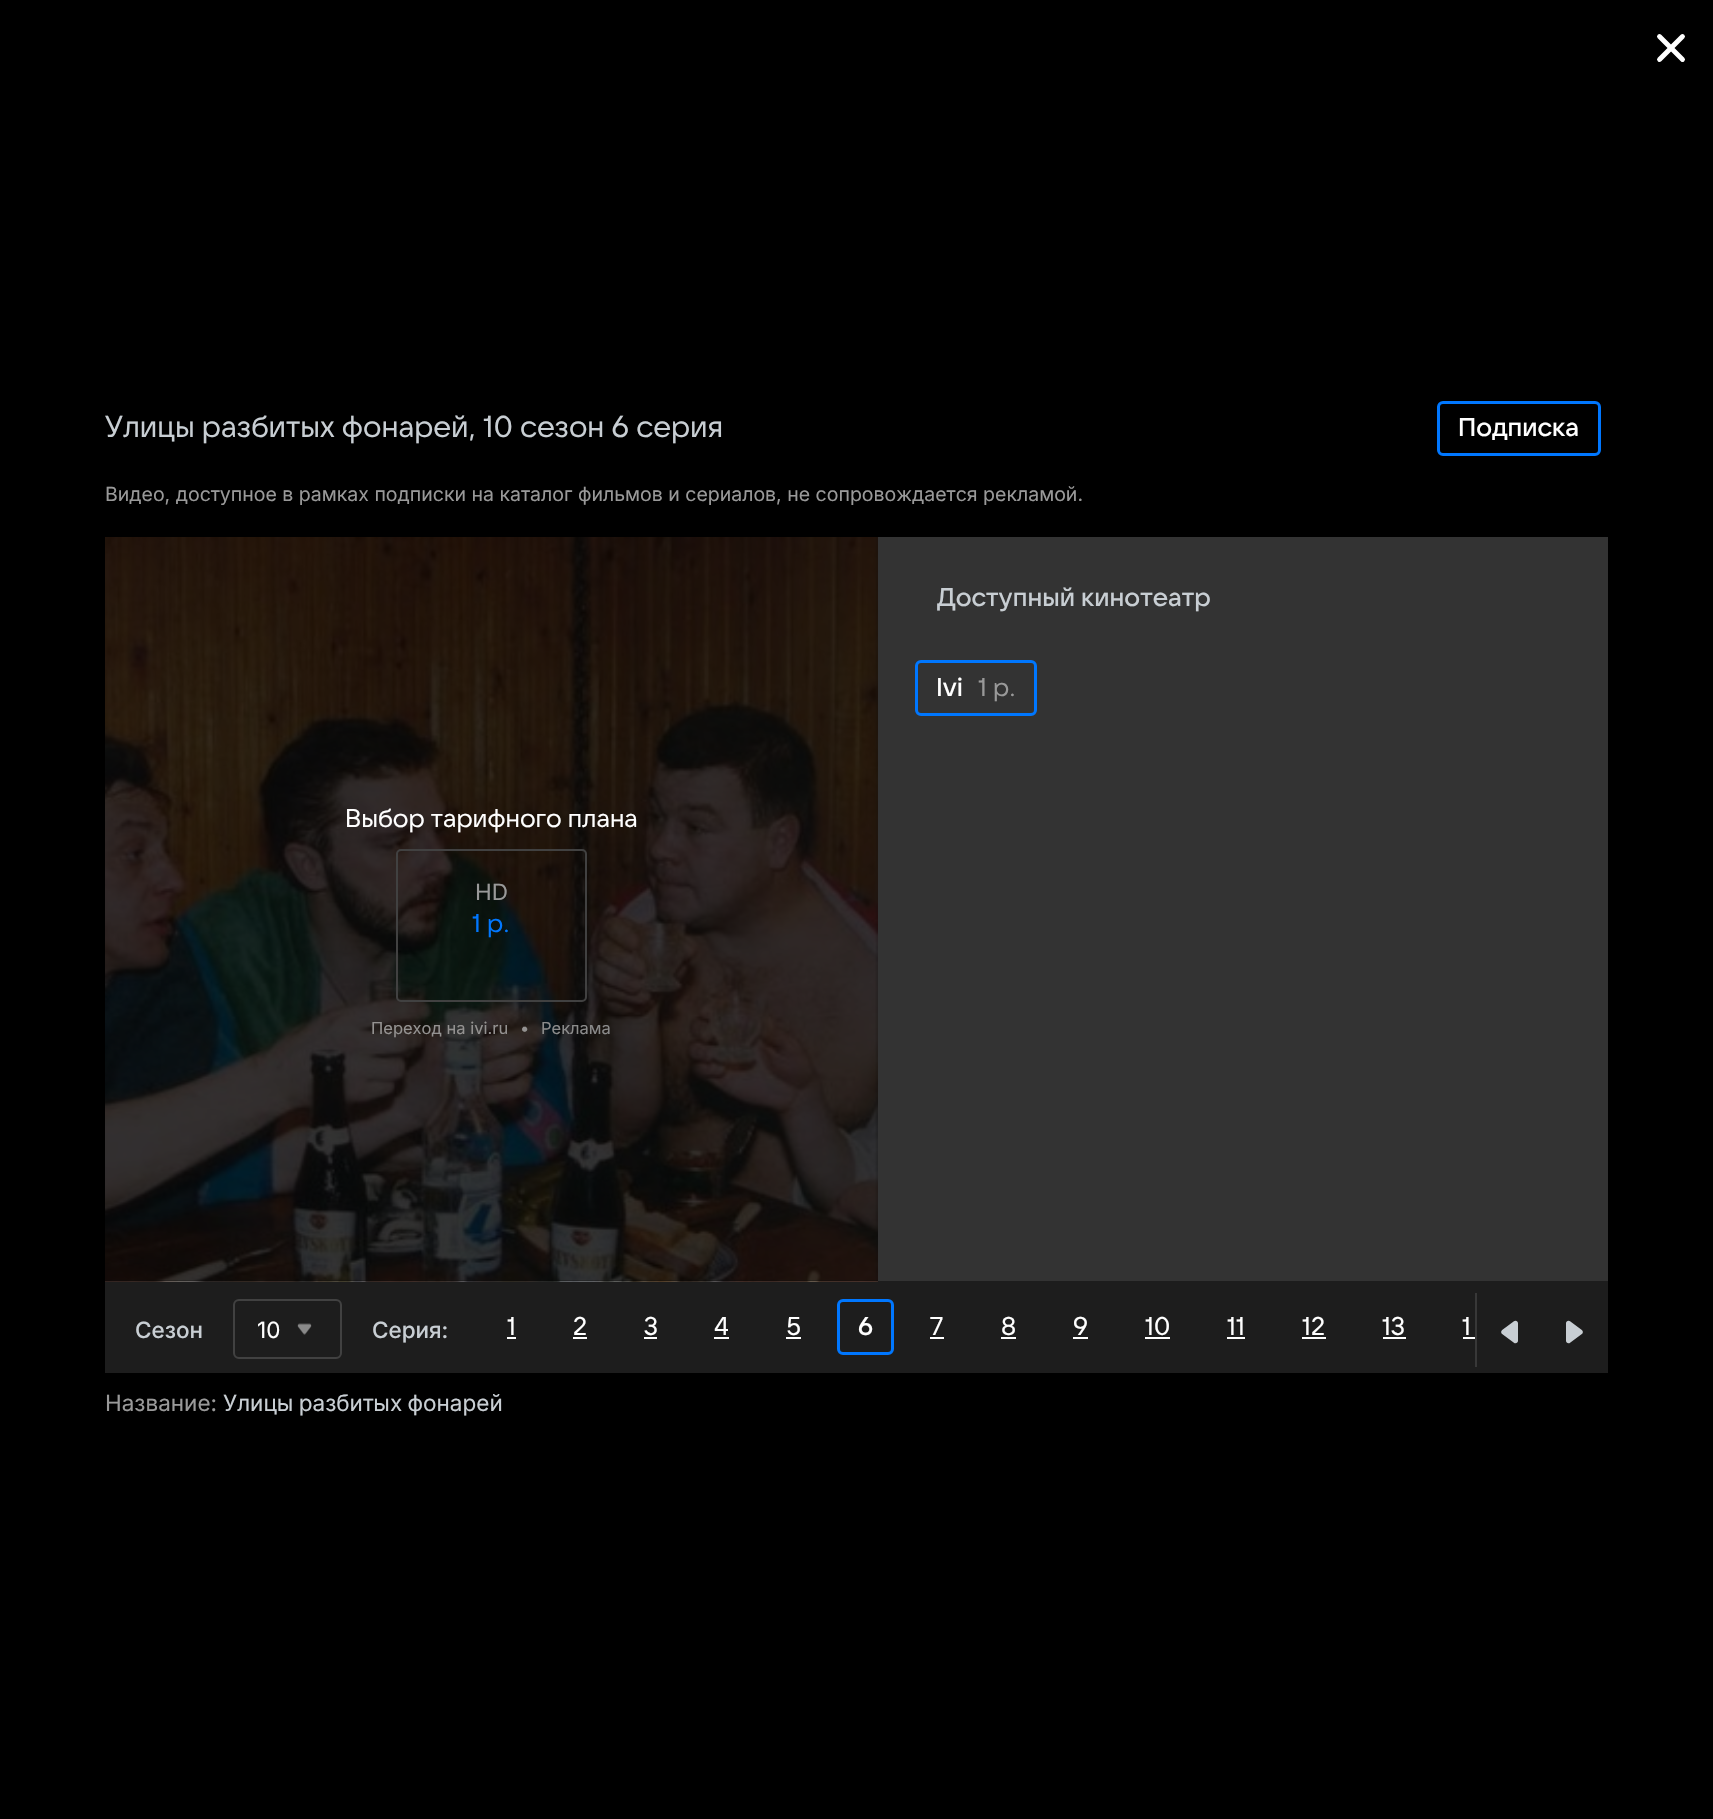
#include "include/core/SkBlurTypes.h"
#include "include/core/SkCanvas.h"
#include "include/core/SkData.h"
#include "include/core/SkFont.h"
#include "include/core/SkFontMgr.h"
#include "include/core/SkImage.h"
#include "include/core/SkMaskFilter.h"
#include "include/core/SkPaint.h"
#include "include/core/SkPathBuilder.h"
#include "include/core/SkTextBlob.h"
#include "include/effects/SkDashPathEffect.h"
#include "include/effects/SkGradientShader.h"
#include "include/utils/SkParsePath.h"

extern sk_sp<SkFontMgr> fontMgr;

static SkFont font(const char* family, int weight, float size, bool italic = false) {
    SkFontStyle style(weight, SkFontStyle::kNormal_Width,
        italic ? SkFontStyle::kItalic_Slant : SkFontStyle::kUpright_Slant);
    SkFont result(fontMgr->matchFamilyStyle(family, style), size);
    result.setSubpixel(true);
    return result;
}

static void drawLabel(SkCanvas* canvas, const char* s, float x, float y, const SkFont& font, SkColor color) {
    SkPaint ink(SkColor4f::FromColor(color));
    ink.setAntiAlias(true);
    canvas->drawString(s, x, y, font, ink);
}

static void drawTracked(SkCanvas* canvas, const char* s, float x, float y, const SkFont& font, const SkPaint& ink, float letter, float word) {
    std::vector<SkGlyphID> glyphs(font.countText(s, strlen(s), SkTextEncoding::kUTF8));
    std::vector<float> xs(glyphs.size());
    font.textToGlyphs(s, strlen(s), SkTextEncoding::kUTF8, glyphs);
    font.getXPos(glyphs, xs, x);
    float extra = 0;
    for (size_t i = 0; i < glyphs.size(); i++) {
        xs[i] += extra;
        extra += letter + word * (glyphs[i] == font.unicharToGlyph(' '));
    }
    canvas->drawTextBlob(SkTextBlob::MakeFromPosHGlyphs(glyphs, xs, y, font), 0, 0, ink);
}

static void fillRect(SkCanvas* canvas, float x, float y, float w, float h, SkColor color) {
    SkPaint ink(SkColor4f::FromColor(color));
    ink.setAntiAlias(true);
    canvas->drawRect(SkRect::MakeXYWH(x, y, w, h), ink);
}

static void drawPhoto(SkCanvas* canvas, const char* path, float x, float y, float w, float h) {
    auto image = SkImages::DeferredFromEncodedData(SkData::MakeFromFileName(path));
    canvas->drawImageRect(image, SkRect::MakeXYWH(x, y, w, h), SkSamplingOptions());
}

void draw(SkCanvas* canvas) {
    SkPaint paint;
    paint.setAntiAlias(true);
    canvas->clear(0xFF000000);
    drawPhoto(canvas, "assets/img1.png", 1657, 34, 28, 28);
    SkFont font1 = font("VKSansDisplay", 400, 30);
    drawLabel(canvas, "Улицы разбитых фонарей, 10 сезон 6 серия", 105, 437, font1, 0xFFC8CED3);
    SkFont font2 = font("Inter", 400, 19.5f);
    drawLabel(canvas, "Видео, доступное в рамках подписки на каталог фильмов и сериалов, не сопровождается рекламой.", 105, 501, font2, 0xFF999999);
    paint.setStroke(true);
    paint.setStrokeWidth(3);
    paint.setColor(0xFF0077FF);
    canvas->drawRoundRect(SkRect::MakeXYWH(1438.5f, 402.5f, 161, 52), 4.5f, 4.5f, paint);
    SkFont font3 = font("VKSansDisplay", 500, 25.5f);
    drawLabel(canvas, "Подписка", 1458, 436, font3, 0xFFFFFFFF);
    fillRect(canvas, 878, 537, 730, 744, 0xFF333333);
    fillRect(canvas, 105, 537, 773, 744, 0xFF0A0A0A);
    drawLabel(canvas, "Доступный кинотеатр", 937, 606, font3, 0xFFC8CED3);
    canvas->drawRoundRect(SkRect::MakeXYWH(916.5f, 661.5f, 119, 53), 4.5f, 4.5f, paint);
    drawLabel(canvas, "Ivi", 936, 696, font3, 0xFFFFFFFF);
    SkFont font4 = font("VKSansDisplay", 400, 25.5f);
    drawLabel(canvas, "1 р.", 978, 696, font4, 0xFF999999);
    fillRect(canvas, 105, 1281, 1503, 92, 0xFF1D1D1D);
    drawPhoto(canvas, "assets/img2.png", 105, 537, 773, 745);
    drawLabel(canvas, "Выбор тарифного плана", 345, 827, font4, 0xFFFFFFFF);
    paint.setStrokeWidth(2);
    paint.setColor(0xFF414141);
    canvas->drawRoundRect(SkRect::MakeXYWH(397, 850, 189, 151), 4, 4, paint);
    SkFont font5 = font("Inter", 400, 22.5f);
    drawLabel(canvas, "HD", 475, 900, font5, 0xFF999999);
    drawLabel(canvas, "1 р.", 472, 932, font4, 0xFF0077FF);
    SkFont font6 = font("Inter", 400, 16.5f);
    drawLabel(canvas, "Переход на ivi.ru", 371, 1034, font6, 0xFF949291);
    drawLabel(canvas, "•", 520, 1034, font6, 0xFF949291);
    drawLabel(canvas, "Реклама", 541, 1034, font6, 0xFF8B8B8B);
    SkFont font7 = font("Inter", 500, 22.5f);
    drawLabel(canvas, "Сезон", 135, 1338, font7, 0xFFC8CED3);
    canvas->drawRoundRect(SkRect::MakeXYWH(234, 1300, 107, 58), 5, 5, paint);
    drawLabel(canvas, "10", 257, 1338, font5, 0xFFFFFFFF);
    drawPhoto(canvas, "assets/img3.png", 297, 1323, 15, 12);
    drawLabel(canvas, "Серия:", 372, 1338, font7, 0xFFC8CED3);
    drawLabel(canvas, "1", 507, 1335, font4, 0xFFFFFFFF);
    fillRect(canvas, 507, 1337, 9, 2, 0xFFFFFFFF);
    drawLabel(canvas, "2", 573, 1335, font4, 0xFFFFFFFF);
    fillRect(canvas, 573, 1337, 14, 2, 0xFFFFFFFF);
    drawLabel(canvas, "3", 644, 1335, font4, 0xFFFFFFFF);
    fillRect(canvas, 644, 1337, 13, 2, 0xFFFFFFFF);
    drawLabel(canvas, "4", 714, 1335, font4, 0xFFFFFFFF);
    fillRect(canvas, 714, 1337, 15, 2, 0xFFFFFFFF);
    drawLabel(canvas, "5", 786, 1335, font4, 0xFFFFFFFF);
    fillRect(canvas, 786, 1337, 15, 2, 0xFFFFFFFF);
    paint.setStrokeWidth(3);
    paint.setColor(0xFF0077FF);
    canvas->drawRoundRect(SkRect::MakeXYWH(838.5f, 1300.5f, 54, 53), 4.5f, 4.5f, paint);
    drawLabel(canvas, "6", 858, 1335, font3, 0xFFFFFFFF);
    drawLabel(canvas, "7", 930, 1335, font4, 0xFFFFFFFF);
    fillRect(canvas, 930, 1337, 14, 2, 0xFFFFFFFF);
    drawLabel(canvas, "8", 1001, 1335, font4, 0xFFFFFFFF);
    fillRect(canvas, 1001, 1337, 15, 2, 0xFFFFFFFF);
    drawLabel(canvas, "9", 1073, 1335, font4, 0xFFFFFFFF);
    fillRect(canvas, 1073, 1337, 15, 2, 0xFFFFFFFF);
    drawLabel(canvas, "10", 1145, 1335, font4, 0xFFFFFFFF);
    fillRect(canvas, 1145, 1337, 25, 2, 0xFFFFFFFF);
    drawLabel(canvas, "11", 1227, 1335, font4, 0xFFFFFFFF);
    fillRect(canvas, 1227, 1337, 18, 2, 0xFFFFFFFF);
    drawLabel(canvas, "12", 1302, 1335, font4, 0xFFFFFFFF);
    fillRect(canvas, 1302, 1337, 24, 2, 0xFFFFFFFF);
    drawLabel(canvas, "13", 1382, 1335, font4, 0xFFFFFFFF);
    fillRect(canvas, 1383, 1337, 23, 2, 0xFFFFFFFF);
    drawLabel(canvas, "1", 1462, 1335, font4, 0xFFFFFFFF);
    fillRect(canvas, 1463, 1337, 12, 2, 0xFFFFFFFF);
    fillRect(canvas, 1475, 1293, 2, 74, 0xFF383838);
    drawPhoto(canvas, "assets/img4.png", 1501, 1320, 17, 24);
    drawPhoto(canvas, "assets/img5.png", 1566, 1320, 17, 24);
    drawLabel(canvas, "Название:", 105, 1411, font5, 0xFF999999);
    paint.setStroke(false);
    paint.setColor(0xFFC8CED3);
    drawTracked(canvas, "Улицы разбитых фонарей", 223, 1411, font5, paint, 0, -1);
}
